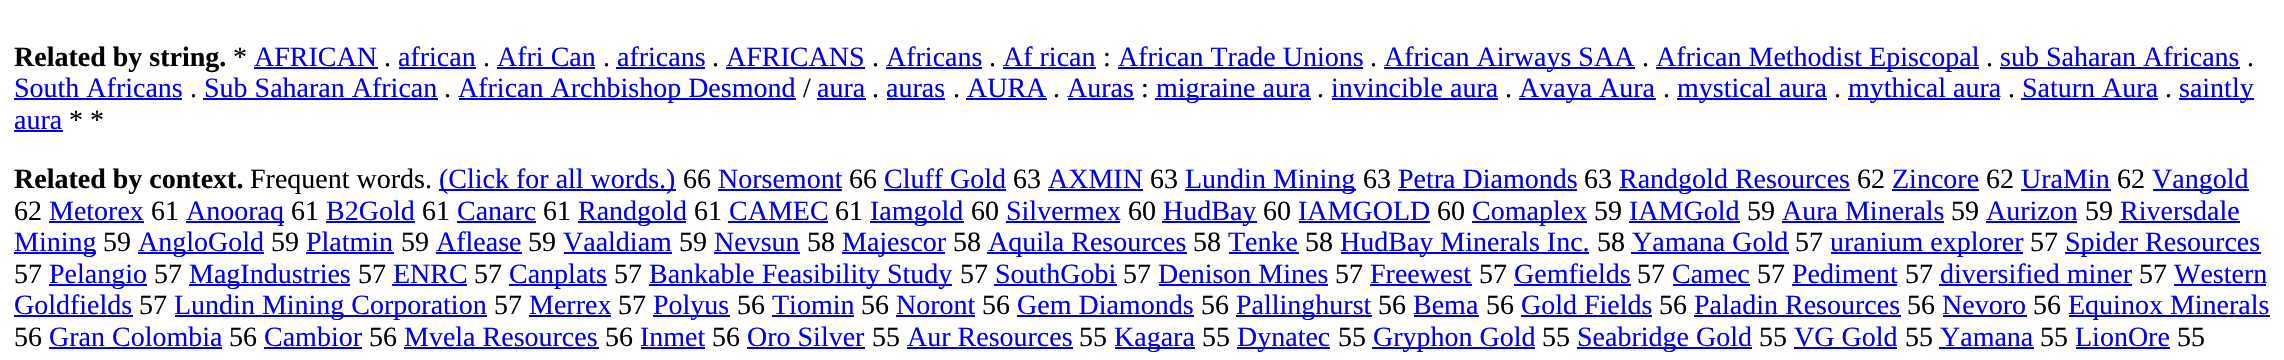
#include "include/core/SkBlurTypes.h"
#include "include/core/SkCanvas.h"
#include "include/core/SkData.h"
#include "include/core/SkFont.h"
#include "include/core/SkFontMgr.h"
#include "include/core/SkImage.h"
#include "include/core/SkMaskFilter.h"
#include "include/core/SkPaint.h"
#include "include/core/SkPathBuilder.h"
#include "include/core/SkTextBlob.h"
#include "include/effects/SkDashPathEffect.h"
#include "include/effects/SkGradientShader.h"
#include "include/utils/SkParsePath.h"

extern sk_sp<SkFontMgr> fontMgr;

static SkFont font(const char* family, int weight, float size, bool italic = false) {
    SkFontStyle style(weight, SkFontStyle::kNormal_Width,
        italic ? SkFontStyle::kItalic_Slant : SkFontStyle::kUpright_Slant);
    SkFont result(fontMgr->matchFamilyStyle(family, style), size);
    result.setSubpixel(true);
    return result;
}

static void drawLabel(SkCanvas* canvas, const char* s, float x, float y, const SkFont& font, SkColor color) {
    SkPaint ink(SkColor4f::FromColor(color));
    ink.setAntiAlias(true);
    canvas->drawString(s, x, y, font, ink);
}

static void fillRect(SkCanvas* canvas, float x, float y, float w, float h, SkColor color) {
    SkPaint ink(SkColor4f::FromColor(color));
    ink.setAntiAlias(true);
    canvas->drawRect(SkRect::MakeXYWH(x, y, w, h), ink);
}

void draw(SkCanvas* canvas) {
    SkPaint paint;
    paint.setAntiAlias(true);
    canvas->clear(0xFFFFFFFF);
    SkFont font1 = font("Liberation Serif", 700, 28);
    drawLabel(canvas, "Related by string.", 14, 66, font1, 0xFF000000);
    SkFont font2 = font("Liberation Serif", 400, 28);
    drawLabel(canvas, "*", 233, 66, font2, 0xFF000000);
    drawLabel(canvas, "AFRICAN", 254, 66, font2, 0xFF0000EE);
    fillRect(canvas, 254, 67, 124, 2, 0xFF0000EE);
    drawLabel(canvas, ".", 384, 66, font2, 0xFF000000);
    drawLabel(canvas, "african", 398, 66, font2, 0xFF0000EE);
    fillRect(canvas, 399, 67, 77, 2, 0xFF0000EE);
    drawLabel(canvas, ".", 483, 66, font2, 0xFF000000);
    drawLabel(canvas, "Afri Can", 497, 66, font2, 0xFF0000EE);
    fillRect(canvas, 497, 67, 98, 2, 0xFF0000EE);
    drawLabel(canvas, ".", 603, 66, font2, 0xFF000000);
    drawLabel(canvas, "africans", 617, 66, font2, 0xFF0000EE);
    fillRect(canvas, 616, 67, 89, 2, 0xFF0000EE);
    drawLabel(canvas, ".", 712, 66, font2, 0xFF000000);
    drawLabel(canvas, "AFRICANS", 726, 66, font2, 0xFF0000EE);
    fillRect(canvas, 726, 67, 139, 2, 0xFF0000EE);
    drawLabel(canvas, ".", 872, 66, font2, 0xFF000000);
    drawLabel(canvas, "Africans", 886, 66, font2, 0xFF0000EE);
    fillRect(canvas, 886, 67, 96, 2, 0xFF0000EE);
    drawLabel(canvas, ".", 989, 66, font2, 0xFF000000);
    drawLabel(canvas, "Af rican", 1003, 66, font2, 0xFF0000EE);
    fillRect(canvas, 1003, 67, 93, 2, 0xFF0000EE);
    drawLabel(canvas, ":", 1103, 66, font2, 0xFF000000);
    drawLabel(canvas, "African Trade Unions", 1118, 66, font2, 0xFF0000EE);
    fillRect(canvas, 1118, 67, 245, 2, 0xFF0000EE);
    drawLabel(canvas, ".", 1370, 66, font2, 0xFF000000);
    fillRect(canvas, 1384, 67, 251, 2, 0xFF0000EE);
    drawLabel(canvas, "African Airways SAA", 1384, 66, font2, 0xFF0000EE);
    drawLabel(canvas, ".", 1642, 66, font2, 0xFF000000);
    fillRect(canvas, 1656, 67, 323, 2, 0xFF0000EE);
    drawLabel(canvas, "African Methodist Episcopal", 1656, 66, font2, 0xFF0000EE);
    drawLabel(canvas, ".", 1986, 66, font2, 0xFF000000);
    drawLabel(canvas, "sub Saharan Africans", 2000, 66, font2, 0xFF0000EE);
    fillRect(canvas, 2000, 67, 240, 2, 0xFF0000EE);
    drawLabel(canvas, ".", 2247, 66, font2, 0xFF000000);
    drawLabel(canvas, "South Africans", 14, 97, font2, 0xFF0000EE);
    fillRect(canvas, 14, 98, 168, 2, 0xFF0000EE);
    drawLabel(canvas, ".", 190, 97, font2, 0xFF000000);
    drawLabel(canvas, "Sub Saharan African", 204, 97, font2, 0xFF0000EE);
    fillRect(canvas, 203, 98, 235, 2, 0xFF0000EE);
    drawLabel(canvas, ".", 444, 97, font2, 0xFF000000);
    fillRect(canvas, 459, 98, 337, 2, 0xFF0000EE);
    drawLabel(canvas, "African Archbishop Desmond", 458, 97, font2, 0xFF0000EE);
    drawLabel(canvas, "/", 803, 97, font2, 0xFF000000);
    drawLabel(canvas, "aura", 817, 97, font2, 0xFF0000EE);
    fillRect(canvas, 817, 98, 49, 2, 0xFF0000EE);
    drawLabel(canvas, ".", 872, 97, font2, 0xFF000000);
    drawLabel(canvas, "auras", 886, 97, font2, 0xFF0000EE);
    fillRect(canvas, 887, 98, 58, 2, 0xFF0000EE);
    drawLabel(canvas, ".", 953, 97, font2, 0xFF000000);
    drawLabel(canvas, "AURA", 967, 97, font2, 0xFF0000EE);
    fillRect(canvas, 966, 98, 81, 2, 0xFF0000EE);
    drawLabel(canvas, ".", 1053, 97, font2, 0xFF000000);
    drawLabel(canvas, "Auras", 1067, 97, font2, 0xFF0000EE);
    fillRect(canvas, 1068, 98, 66, 2, 0xFF0000EE);
    drawLabel(canvas, ":", 1141, 97, font2, 0xFF000000);
    fillRect(canvas, 1155, 98, 156, 2, 0xFF0000EE);
    drawLabel(canvas, "migraine aura", 1156, 97, font2, 0xFF0000EE);
    drawLabel(canvas, ".", 1317, 97, font2, 0xFF000000);
    drawLabel(canvas, "invincible aura", 1331, 97, font2, 0xFF0000EE);
    fillRect(canvas, 1332, 98, 166, 2, 0xFF0000EE);
    drawLabel(canvas, ".", 1505, 97, font2, 0xFF000000);
    fillRect(canvas, 1519, 98, 137, 2, 0xFF0000EE);
    drawLabel(canvas, "Avaya Aura", 1519, 97, font2, 0xFF0000EE);
    drawLabel(canvas, ".", 1663, 97, font2, 0xFF000000);
    fillRect(canvas, 1677, 98, 150, 2, 0xFF0000EE);
    drawLabel(canvas, "mystical aura", 1677, 97, font2, 0xFF0000EE);
    drawLabel(canvas, ".", 1834, 97, font2, 0xFF000000);
    fillRect(canvas, 1848, 98, 152, 2, 0xFF0000EE);
    drawLabel(canvas, "mythical aura", 1848, 97, font2, 0xFF0000EE);
    drawLabel(canvas, ".", 2008, 97, font2, 0xFF000000);
    drawLabel(canvas, "Saturn Aura", 2022, 97, font2, 0xFF0000EE);
    fillRect(canvas, 2021, 98, 137, 2, 0xFF0000EE);
    drawLabel(canvas, ".", 2165, 97, font2, 0xFF000000);
    fillRect(canvas, 2179, 98, 75, 2, 0xFF0000EE);
    drawLabel(canvas, "saintly", 2179, 97, font2, 0xFF0000EE);
    drawLabel(canvas, "aura", 14, 129, font2, 0xFF0000EE);
    fillRect(canvas, 14, 130, 49, 2, 0xFF0000EE);
    drawLabel(canvas, "* *", 69, 129, font2, 0xFF000000);
    drawLabel(canvas, "Related by context.", 14, 188, font1, 0xFF000000);
    drawLabel(canvas, "Frequent words.", 250, 188, font2, 0xFF000000);
    fillRect(canvas, 439, 189, 237, 2, 0xFF0000EE);
    drawLabel(canvas, "(Click for all words.)", 439, 188, font2, 0xFF0000EE);
    drawLabel(canvas, "66", 683, 188, font2, 0xFF000000);
    drawLabel(canvas, "Norsemont", 718, 188, font2, 0xFF0000EE);
    fillRect(canvas, 718, 189, 124, 2, 0xFF0000EE);
    drawLabel(canvas, "66", 849, 188, font2, 0xFF000000);
    drawLabel(canvas, "Cluff Gold", 884, 188, font2, 0xFF0000EE);
    fillRect(canvas, 884, 189, 122, 2, 0xFF0000EE);
    drawLabel(canvas, "63", 1013, 188, font2, 0xFF000000);
    drawLabel(canvas, "AXMIN", 1048, 188, font2, 0xFF0000EE);
    fillRect(canvas, 1048, 189, 95, 2, 0xFF0000EE);
    drawLabel(canvas, "63", 1150, 188, font2, 0xFF000000);
    fillRect(canvas, 1185, 189, 171, 2, 0xFF0000EE);
    drawLabel(canvas, "Lundin Mining", 1185, 188, font2, 0xFF0000EE);
    drawLabel(canvas, "63", 1363, 188, font2, 0xFF000000);
    drawLabel(canvas, "Petra Diamonds", 1398, 188, font2, 0xFF0000EE);
    fillRect(canvas, 1398, 189, 179, 2, 0xFF0000EE);
    drawLabel(canvas, "63", 1584, 188, font2, 0xFF000000);
    fillRect(canvas, 1619, 189, 231, 2, 0xFF0000EE);
    drawLabel(canvas, "Randgold Resources", 1619, 188, font2, 0xFF0000EE);
    drawLabel(canvas, "62", 1857, 188, font2, 0xFF000000);
    drawLabel(canvas, "Zincore", 1892, 188, font2, 0xFF0000EE);
    fillRect(canvas, 1892, 189, 87, 2, 0xFF0000EE);
    drawLabel(canvas, "62", 1986, 188, font2, 0xFF000000);
    drawLabel(canvas, "UraMin", 2021, 188, font2, 0xFF0000EE);
    fillRect(canvas, 2021, 189, 90, 2, 0xFF0000EE);
    drawLabel(canvas, "62", 2117, 188, font2, 0xFF000000);
    fillRect(canvas, 2153, 189, 96, 2, 0xFF0000EE);
    drawLabel(canvas, "Vangold", 2152, 188, font2, 0xFF0000EE);
    drawLabel(canvas, "62", 14, 220, font2, 0xFF000000);
    drawLabel(canvas, "Metorex", 49, 220, font2, 0xFF0000EE);
    fillRect(canvas, 49, 221, 95, 2, 0xFF0000EE);
    drawLabel(canvas, "61", 151, 220, font2, 0xFF000000);
    fillRect(canvas, 186, 221, 98, 2, 0xFF0000EE);
    drawLabel(canvas, "Anooraq", 186, 220, font2, 0xFF0000EE);
    drawLabel(canvas, "61", 291, 220, font2, 0xFF000000);
    drawLabel(canvas, "B2Gold", 326, 220, font2, 0xFF0000EE);
    fillRect(canvas, 326, 221, 89, 2, 0xFF0000EE);
    drawLabel(canvas, "61", 422, 220, font2, 0xFF000000);
    drawLabel(canvas, "Canarc", 457, 220, font2, 0xFF0000EE);
    fillRect(canvas, 457, 221, 79, 2, 0xFF0000EE);
    drawLabel(canvas, "61", 543, 220, font2, 0xFF000000);
    fillRect(canvas, 578, 221, 108, 2, 0xFF0000EE);
    drawLabel(canvas, "Randgold", 578, 220, font2, 0xFF0000EE);
    drawLabel(canvas, "61", 694, 220, font2, 0xFF000000);
    drawLabel(canvas, "CAMEC", 729, 220, font2, 0xFF0000EE);
    fillRect(canvas, 728, 221, 100, 2, 0xFF0000EE);
    drawLabel(canvas, "61", 835, 220, font2, 0xFF000000);
    fillRect(canvas, 870, 221, 94, 2, 0xFF0000EE);
    drawLabel(canvas, "Iamgold", 870, 220, font2, 0xFF0000EE);
    drawLabel(canvas, "60", 971, 220, font2, 0xFF000000);
    drawLabel(canvas, "Silvermex", 1006, 220, font2, 0xFF0000EE);
    fillRect(canvas, 1006, 221, 114, 2, 0xFF0000EE);
    drawLabel(canvas, "60", 1128, 220, font2, 0xFF000000);
    fillRect(canvas, 1162, 221, 95, 2, 0xFF0000EE);
    drawLabel(canvas, "HudBay", 1163, 220, font2, 0xFF0000EE);
    drawLabel(canvas, "60", 1263, 220, font2, 0xFF000000);
    drawLabel(canvas, "IAMGOLD", 1298, 220, font2, 0xFF0000EE);
    fillRect(canvas, 1299, 221, 131, 2, 0xFF0000EE);
    drawLabel(canvas, "60", 1437, 220, font2, 0xFF000000);
    fillRect(canvas, 1472, 221, 115, 2, 0xFF0000EE);
    drawLabel(canvas, "Comaplex", 1472, 220, font2, 0xFF0000EE);
    drawLabel(canvas, "59", 1594, 220, font2, 0xFF000000);
    drawLabel(canvas, "IAMGold", 1629, 220, font2, 0xFF0000EE);
    fillRect(canvas, 1629, 221, 111, 2, 0xFF0000EE);
    drawLabel(canvas, "59", 1747, 220, font2, 0xFF000000);
    drawLabel(canvas, "Aura Minerals", 1782, 220, font2, 0xFF0000EE);
    fillRect(canvas, 1782, 221, 162, 2, 0xFF0000EE);
    drawLabel(canvas, "59", 1951, 220, font2, 0xFF000000);
    drawLabel(canvas, "Aurizon", 1986, 220, font2, 0xFF0000EE);
    fillRect(canvas, 1986, 221, 91, 2, 0xFF0000EE);
    drawLabel(canvas, "59", 2085, 220, font2, 0xFF000000);
    drawLabel(canvas, "Riversdale", 2120, 220, font2, 0xFF0000EE);
    fillRect(canvas, 2119, 221, 121, 2, 0xFF0000EE);
    fillRect(canvas, 14, 252, 82, 2, 0xFF0000EE);
    drawLabel(canvas, "Mining", 14, 251, font2, 0xFF0000EE);
    drawLabel(canvas, "59", 103, 251, font2, 0xFF000000);
    fillRect(canvas, 138, 252, 126, 2, 0xFF0000EE);
    drawLabel(canvas, "AngloGold", 138, 251, font2, 0xFF0000EE);
    drawLabel(canvas, "59", 271, 251, font2, 0xFF000000);
    drawLabel(canvas, "Platmin", 306, 251, font2, 0xFF0000EE);
    fillRect(canvas, 306, 252, 88, 2, 0xFF0000EE);
    drawLabel(canvas, "59", 401, 251, font2, 0xFF000000);
    drawLabel(canvas, "Aflease", 436, 251, font2, 0xFF0000EE);
    fillRect(canvas, 436, 252, 86, 2, 0xFF0000EE);
    drawLabel(canvas, "59", 528, 251, font2, 0xFF000000);
    drawLabel(canvas, "Vaaldiam", 563, 251, font2, 0xFF0000EE);
    fillRect(canvas, 564, 252, 108, 2, 0xFF0000EE);
    drawLabel(canvas, "59", 679, 251, font2, 0xFF000000);
    drawLabel(canvas, "Nevsun", 714, 251, font2, 0xFF0000EE);
    fillRect(canvas, 714, 252, 86, 2, 0xFF0000EE);
    drawLabel(canvas, "58", 807, 251, font2, 0xFF000000);
    fillRect(canvas, 842, 252, 103, 2, 0xFF0000EE);
    drawLabel(canvas, "Majescor", 842, 251, font2, 0xFF0000EE);
    drawLabel(canvas, "58", 953, 251, font2, 0xFF000000);
    fillRect(canvas, 987, 252, 200, 2, 0xFF0000EE);
    drawLabel(canvas, "Aquila Resources", 988, 251, font2, 0xFF0000EE);
    drawLabel(canvas, "58", 1193, 251, font2, 0xFF000000);
    drawLabel(canvas, "Tenke", 1228, 251, font2, 0xFF0000EE);
    fillRect(canvas, 1229, 252, 70, 2, 0xFF0000EE);
    drawLabel(canvas, "58", 1305, 251, font2, 0xFF000000);
    fillRect(canvas, 1341, 252, 248, 2, 0xFF0000EE);
    drawLabel(canvas, "HudBay Minerals Inc.", 1340, 251, font2, 0xFF0000EE);
    drawLabel(canvas, "58", 1597, 251, font2, 0xFF000000);
    drawLabel(canvas, "Yamana Gold", 1632, 251, font2, 0xFF0000EE);
    fillRect(canvas, 1631, 252, 158, 2, 0xFF0000EE);
    drawLabel(canvas, "57", 1795, 251, font2, 0xFF000000);
    fillRect(canvas, 1831, 252, 192, 2, 0xFF0000EE);
    drawLabel(canvas, "uranium explorer", 1830, 251, font2, 0xFF0000EE);
    drawLabel(canvas, "57", 2030, 251, font2, 0xFF000000);
    fillRect(canvas, 2065, 252, 196, 2, 0xFF0000EE);
    drawLabel(canvas, "Spider Resources", 2065, 251, font2, 0xFF0000EE);
    drawLabel(canvas, "57", 14, 283, font2, 0xFF000000);
    fillRect(canvas, 49, 284, 98, 2, 0xFF0000EE);
    drawLabel(canvas, "Pelangio", 49, 283, font2, 0xFF0000EE);
    drawLabel(canvas, "57", 154, 283, font2, 0xFF000000);
    fillRect(canvas, 189, 284, 161, 2, 0xFF0000EE);
    drawLabel(canvas, "MagIndustries", 189, 283, font2, 0xFF0000EE);
    drawLabel(canvas, "57", 358, 283, font2, 0xFF000000);
    drawLabel(canvas, "ENRC", 393, 283, font2, 0xFF0000EE);
    fillRect(canvas, 392, 284, 75, 2, 0xFF0000EE);
    drawLabel(canvas, "57", 474, 283, font2, 0xFF000000);
    fillRect(canvas, 509, 284, 98, 2, 0xFF0000EE);
    drawLabel(canvas, "Canplats", 509, 283, font2, 0xFF0000EE);
    drawLabel(canvas, "57", 614, 283, font2, 0xFF000000);
    fillRect(canvas, 649, 284, 303, 2, 0xFF0000EE);
    drawLabel(canvas, "Bankable Feasibility Study", 649, 283, font2, 0xFF0000EE);
    drawLabel(canvas, "57", 960, 283, font2, 0xFF000000);
    drawLabel(canvas, "SouthGobi", 995, 283, font2, 0xFF0000EE);
    fillRect(canvas, 994, 284, 123, 2, 0xFF0000EE);
    drawLabel(canvas, "57", 1123, 283, font2, 0xFF000000);
    drawLabel(canvas, "Denison Mines", 1158, 283, font2, 0xFF0000EE);
    fillRect(canvas, 1159, 284, 169, 2, 0xFF0000EE);
    drawLabel(canvas, "57", 1335, 283, font2, 0xFF000000);
    drawLabel(canvas, "Freewest", 1370, 283, font2, 0xFF0000EE);
    fillRect(canvas, 1370, 284, 102, 2, 0xFF0000EE);
    drawLabel(canvas, "57", 1479, 283, font2, 0xFF000000);
    drawLabel(canvas, "Gemfields", 1514, 283, font2, 0xFF0000EE);
    fillRect(canvas, 1514, 284, 117, 2, 0xFF0000EE);
    drawLabel(canvas, "57", 1637, 283, font2, 0xFF000000);
    drawLabel(canvas, "Camec", 1672, 283, font2, 0xFF0000EE);
    fillRect(canvas, 1673, 284, 77, 2, 0xFF0000EE);
    drawLabel(canvas, "57", 1757, 283, font2, 0xFF000000);
    drawLabel(canvas, "Pediment", 1792, 283, font2, 0xFF0000EE);
    fillRect(canvas, 1792, 284, 105, 2, 0xFF0000EE);
    drawLabel(canvas, "57", 1905, 283, font2, 0xFF000000);
    drawLabel(canvas, "diversified miner", 1940, 283, font2, 0xFF0000EE);
    fillRect(canvas, 1939, 284, 193, 2, 0xFF0000EE);
    drawLabel(canvas, "57", 2139, 283, font2, 0xFF000000);
    drawLabel(canvas, "Western", 2174, 283, font2, 0xFF0000EE);
    fillRect(canvas, 2174, 284, 92, 2, 0xFF0000EE);
    drawLabel(canvas, "Goldfields", 14, 314, font2, 0xFF0000EE);
    fillRect(canvas, 14, 315, 119, 2, 0xFF0000EE);
    drawLabel(canvas, "57", 139, 314, font2, 0xFF000000);
    fillRect(canvas, 175, 315, 312, 2, 0xFF0000EE);
    drawLabel(canvas, "Lundin Mining Corporation", 174, 314, font2, 0xFF0000EE);
    drawLabel(canvas, "57", 494, 314, font2, 0xFF000000);
    drawLabel(canvas, "Merrex", 529, 314, font2, 0xFF0000EE);
    fillRect(canvas, 529, 315, 82, 2, 0xFF0000EE);
    drawLabel(canvas, "57", 618, 314, font2, 0xFF000000);
    fillRect(canvas, 653, 315, 77, 2, 0xFF0000EE);
    drawLabel(canvas, "Polyus", 653, 314, font2, 0xFF0000EE);
    drawLabel(canvas, "56", 737, 314, font2, 0xFF000000);
    drawLabel(canvas, "Tiomin", 772, 314, font2, 0xFF0000EE);
    fillRect(canvas, 772, 315, 82, 2, 0xFF0000EE);
    drawLabel(canvas, "56", 861, 314, font2, 0xFF000000);
    drawLabel(canvas, "Noront", 896, 314, font2, 0xFF0000EE);
    fillRect(canvas, 896, 315, 79, 2, 0xFF0000EE);
    drawLabel(canvas, "56", 982, 314, font2, 0xFF000000);
    drawLabel(canvas, "Gem Diamonds", 1017, 314, font2, 0xFF0000EE);
    fillRect(canvas, 1017, 315, 177, 2, 0xFF0000EE);
    drawLabel(canvas, "56", 1201, 314, font2, 0xFF000000);
    fillRect(canvas, 1236, 315, 136, 2, 0xFF0000EE);
    drawLabel(canvas, "Pallinghurst", 1236, 314, font2, 0xFF0000EE);
    drawLabel(canvas, "56", 1378, 314, font2, 0xFF000000);
    drawLabel(canvas, "Bema", 1413, 314, font2, 0xFF0000EE);
    fillRect(canvas, 1414, 315, 65, 2, 0xFF0000EE);
    drawLabel(canvas, "56", 1486, 314, font2, 0xFF000000);
    drawLabel(canvas, "Gold Fields", 1521, 314, font2, 0xFF0000EE);
    fillRect(canvas, 1521, 315, 131, 2, 0xFF0000EE);
    drawLabel(canvas, "56", 1659, 314, font2, 0xFF000000);
    drawLabel(canvas, "Paladin Resources", 1694, 314, font2, 0xFF0000EE);
    fillRect(canvas, 1694, 315, 207, 2, 0xFF0000EE);
    drawLabel(canvas, "56", 1907, 314, font2, 0xFF000000);
    drawLabel(canvas, "Nevoro", 1942, 314, font2, 0xFF0000EE);
    fillRect(canvas, 1943, 315, 84, 2, 0xFF0000EE);
    drawLabel(canvas, "56", 2033, 314, font2, 0xFF000000);
    fillRect(canvas, 2069, 315, 201, 2, 0xFF0000EE);
    drawLabel(canvas, "Equinox Minerals", 2068, 314, font2, 0xFF0000EE);
    drawLabel(canvas, "56", 14, 346, font2, 0xFF000000);
    drawLabel(canvas, "Gran Colombia", 49, 346, font2, 0xFF0000EE);
    fillRect(canvas, 49, 347, 173, 2, 0xFF0000EE);
    drawLabel(canvas, "56", 229, 346, font2, 0xFF000000);
    drawLabel(canvas, "Cambior", 264, 346, font2, 0xFF0000EE);
    fillRect(canvas, 264, 347, 98, 2, 0xFF0000EE);
    drawLabel(canvas, "56", 369, 346, font2, 0xFF000000);
    drawLabel(canvas, "Mvela Resources", 404, 346, font2, 0xFF0000EE);
    fillRect(canvas, 404, 347, 195, 2, 0xFF0000EE);
    drawLabel(canvas, "56", 605, 346, font2, 0xFF000000);
    drawLabel(canvas, "Inmet", 640, 346, font2, 0xFF0000EE);
    fillRect(canvas, 641, 347, 64, 2, 0xFF0000EE);
    drawLabel(canvas, "56", 712, 346, font2, 0xFF000000);
    drawLabel(canvas, "Oro Silver", 747, 346, font2, 0xFF0000EE);
    fillRect(canvas, 747, 347, 118, 2, 0xFF0000EE);
    drawLabel(canvas, "55", 872, 346, font2, 0xFF000000);
    drawLabel(canvas, "Aur Resources", 907, 346, font2, 0xFF0000EE);
    fillRect(canvas, 907, 347, 166, 2, 0xFF0000EE);
    drawLabel(canvas, "55", 1079, 346, font2, 0xFF000000);
    fillRect(canvas, 1115, 347, 80, 2, 0xFF0000EE);
    drawLabel(canvas, "Kagara", 1114, 346, font2, 0xFF0000EE);
    drawLabel(canvas, "55", 1202, 346, font2, 0xFF000000);
    fillRect(canvas, 1237, 347, 93, 2, 0xFF0000EE);
    drawLabel(canvas, "Dynatec", 1237, 346, font2, 0xFF0000EE);
    drawLabel(canvas, "55", 1338, 346, font2, 0xFF000000);
    fillRect(canvas, 1372, 347, 163, 2, 0xFF0000EE);
    drawLabel(canvas, "Gryphon Gold", 1373, 346, font2, 0xFF0000EE);
    drawLabel(canvas, "55", 1542, 346, font2, 0xFF000000);
    fillRect(canvas, 1577, 347, 175, 2, 0xFF0000EE);
    drawLabel(canvas, "Seabridge Gold", 1577, 346, font2, 0xFF0000EE);
    drawLabel(canvas, "55", 1759, 346, font2, 0xFF000000);
    drawLabel(canvas, "VG Gold", 1794, 346, font2, 0xFF0000EE);
    fillRect(canvas, 1794, 347, 103, 2, 0xFF0000EE);
    drawLabel(canvas, "55", 1905, 346, font2, 0xFF000000);
    drawLabel(canvas, "Yamana", 1940, 346, font2, 0xFF0000EE);
    fillRect(canvas, 1939, 347, 95, 2, 0xFF0000EE);
    drawLabel(canvas, "55", 2040, 346, font2, 0xFF000000);
    drawLabel(canvas, "LionOre", 2075, 346, font2, 0xFF0000EE);
    fillRect(canvas, 2076, 347, 94, 2, 0xFF0000EE);
    drawLabel(canvas, "55", 2177, 346, font2, 0xFF000000);
}
